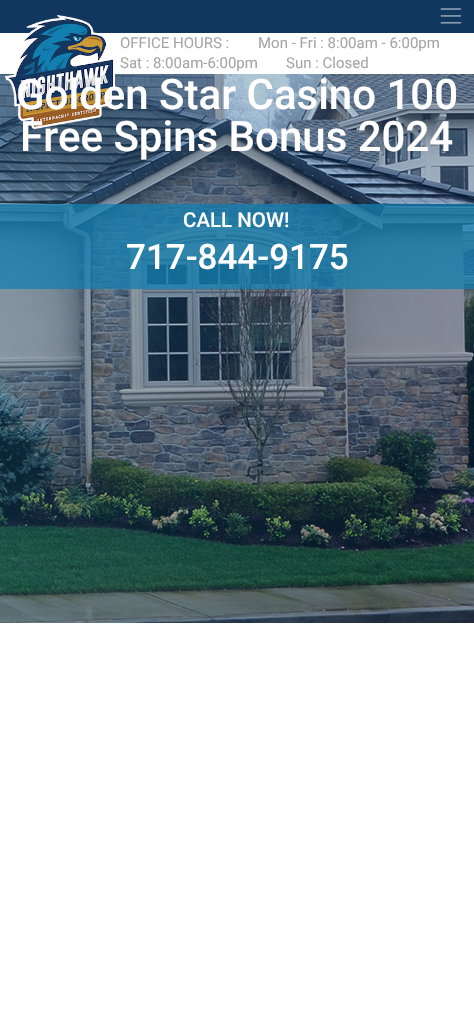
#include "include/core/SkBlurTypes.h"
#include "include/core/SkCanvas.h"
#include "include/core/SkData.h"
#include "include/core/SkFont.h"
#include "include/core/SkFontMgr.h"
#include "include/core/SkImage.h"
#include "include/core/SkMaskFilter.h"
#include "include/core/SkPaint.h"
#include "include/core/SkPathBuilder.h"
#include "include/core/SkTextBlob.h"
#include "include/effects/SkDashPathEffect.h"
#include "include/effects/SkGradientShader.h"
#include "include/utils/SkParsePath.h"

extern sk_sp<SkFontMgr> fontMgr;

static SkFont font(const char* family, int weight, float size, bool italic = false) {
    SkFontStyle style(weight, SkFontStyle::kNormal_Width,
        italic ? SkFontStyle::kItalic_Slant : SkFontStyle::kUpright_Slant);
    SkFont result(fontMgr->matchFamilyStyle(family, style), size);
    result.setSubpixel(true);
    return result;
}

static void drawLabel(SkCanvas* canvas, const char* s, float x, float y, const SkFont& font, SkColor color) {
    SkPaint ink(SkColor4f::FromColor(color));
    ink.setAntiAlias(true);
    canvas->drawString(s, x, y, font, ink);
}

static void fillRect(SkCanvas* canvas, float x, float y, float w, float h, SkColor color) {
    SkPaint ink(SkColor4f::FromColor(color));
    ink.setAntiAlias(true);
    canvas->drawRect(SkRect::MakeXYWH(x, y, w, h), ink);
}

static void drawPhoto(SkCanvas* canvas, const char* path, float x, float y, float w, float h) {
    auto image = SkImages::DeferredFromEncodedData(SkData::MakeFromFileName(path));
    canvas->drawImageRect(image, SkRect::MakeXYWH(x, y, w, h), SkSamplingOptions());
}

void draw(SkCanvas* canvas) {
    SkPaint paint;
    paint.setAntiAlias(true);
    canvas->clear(0xFFFFFFFF);
    fillRect(canvas, 0, 0, 474, 33, 0xFF12375E);
    drawPhoto(canvas, "assets/img3.png", 0, 74, 474, 549);
    drawPhoto(canvas, "assets/img1.png", 5, 15, 110, 114);
    drawPhoto(canvas, "assets/img2.png", 440, 8, 22, 16);
    SkFont font1 = font("Roboto", 400, 15);
    drawLabel(canvas, "OFFICE HOURS :", 120, 48, font1, 0xFFA6A6A6);
    drawLabel(canvas, "Mon - Fri : 8:00am - 6:00pm", 258, 48, font1, 0xFFA6A6A6);
    drawLabel(canvas, "Sat : 8:00am-6:00pm", 120, 68, font1, 0xFFA6A6A6);
    drawLabel(canvas, "Sun : Closed", 286, 68, font1, 0xFFA6A6A6);
    SkFont font2 = font("Roboto", 500, 42);
    drawLabel(canvas, "Golden Star Casino 100", 16, 109, font2, 0xFFFFFFFF);
    drawLabel(canvas, "Free Spins Bonus 2024", 20, 151, font2, 0xFFFFFFFF);
    fillRect(canvas, 0, 204, 474, 85, 0xBF117FB0);
    SkFont font3 = font("Roboto", 500, 20.5f);
    drawLabel(canvas, "CALL NOW!", 183, 227, font3, 0xFFFFFFFF);
    SkFont font4 = font("Roboto", 500, 35);
    drawLabel(canvas, "717-844-9175", 126, 269, font4, 0xFFFFFFFF);
}
